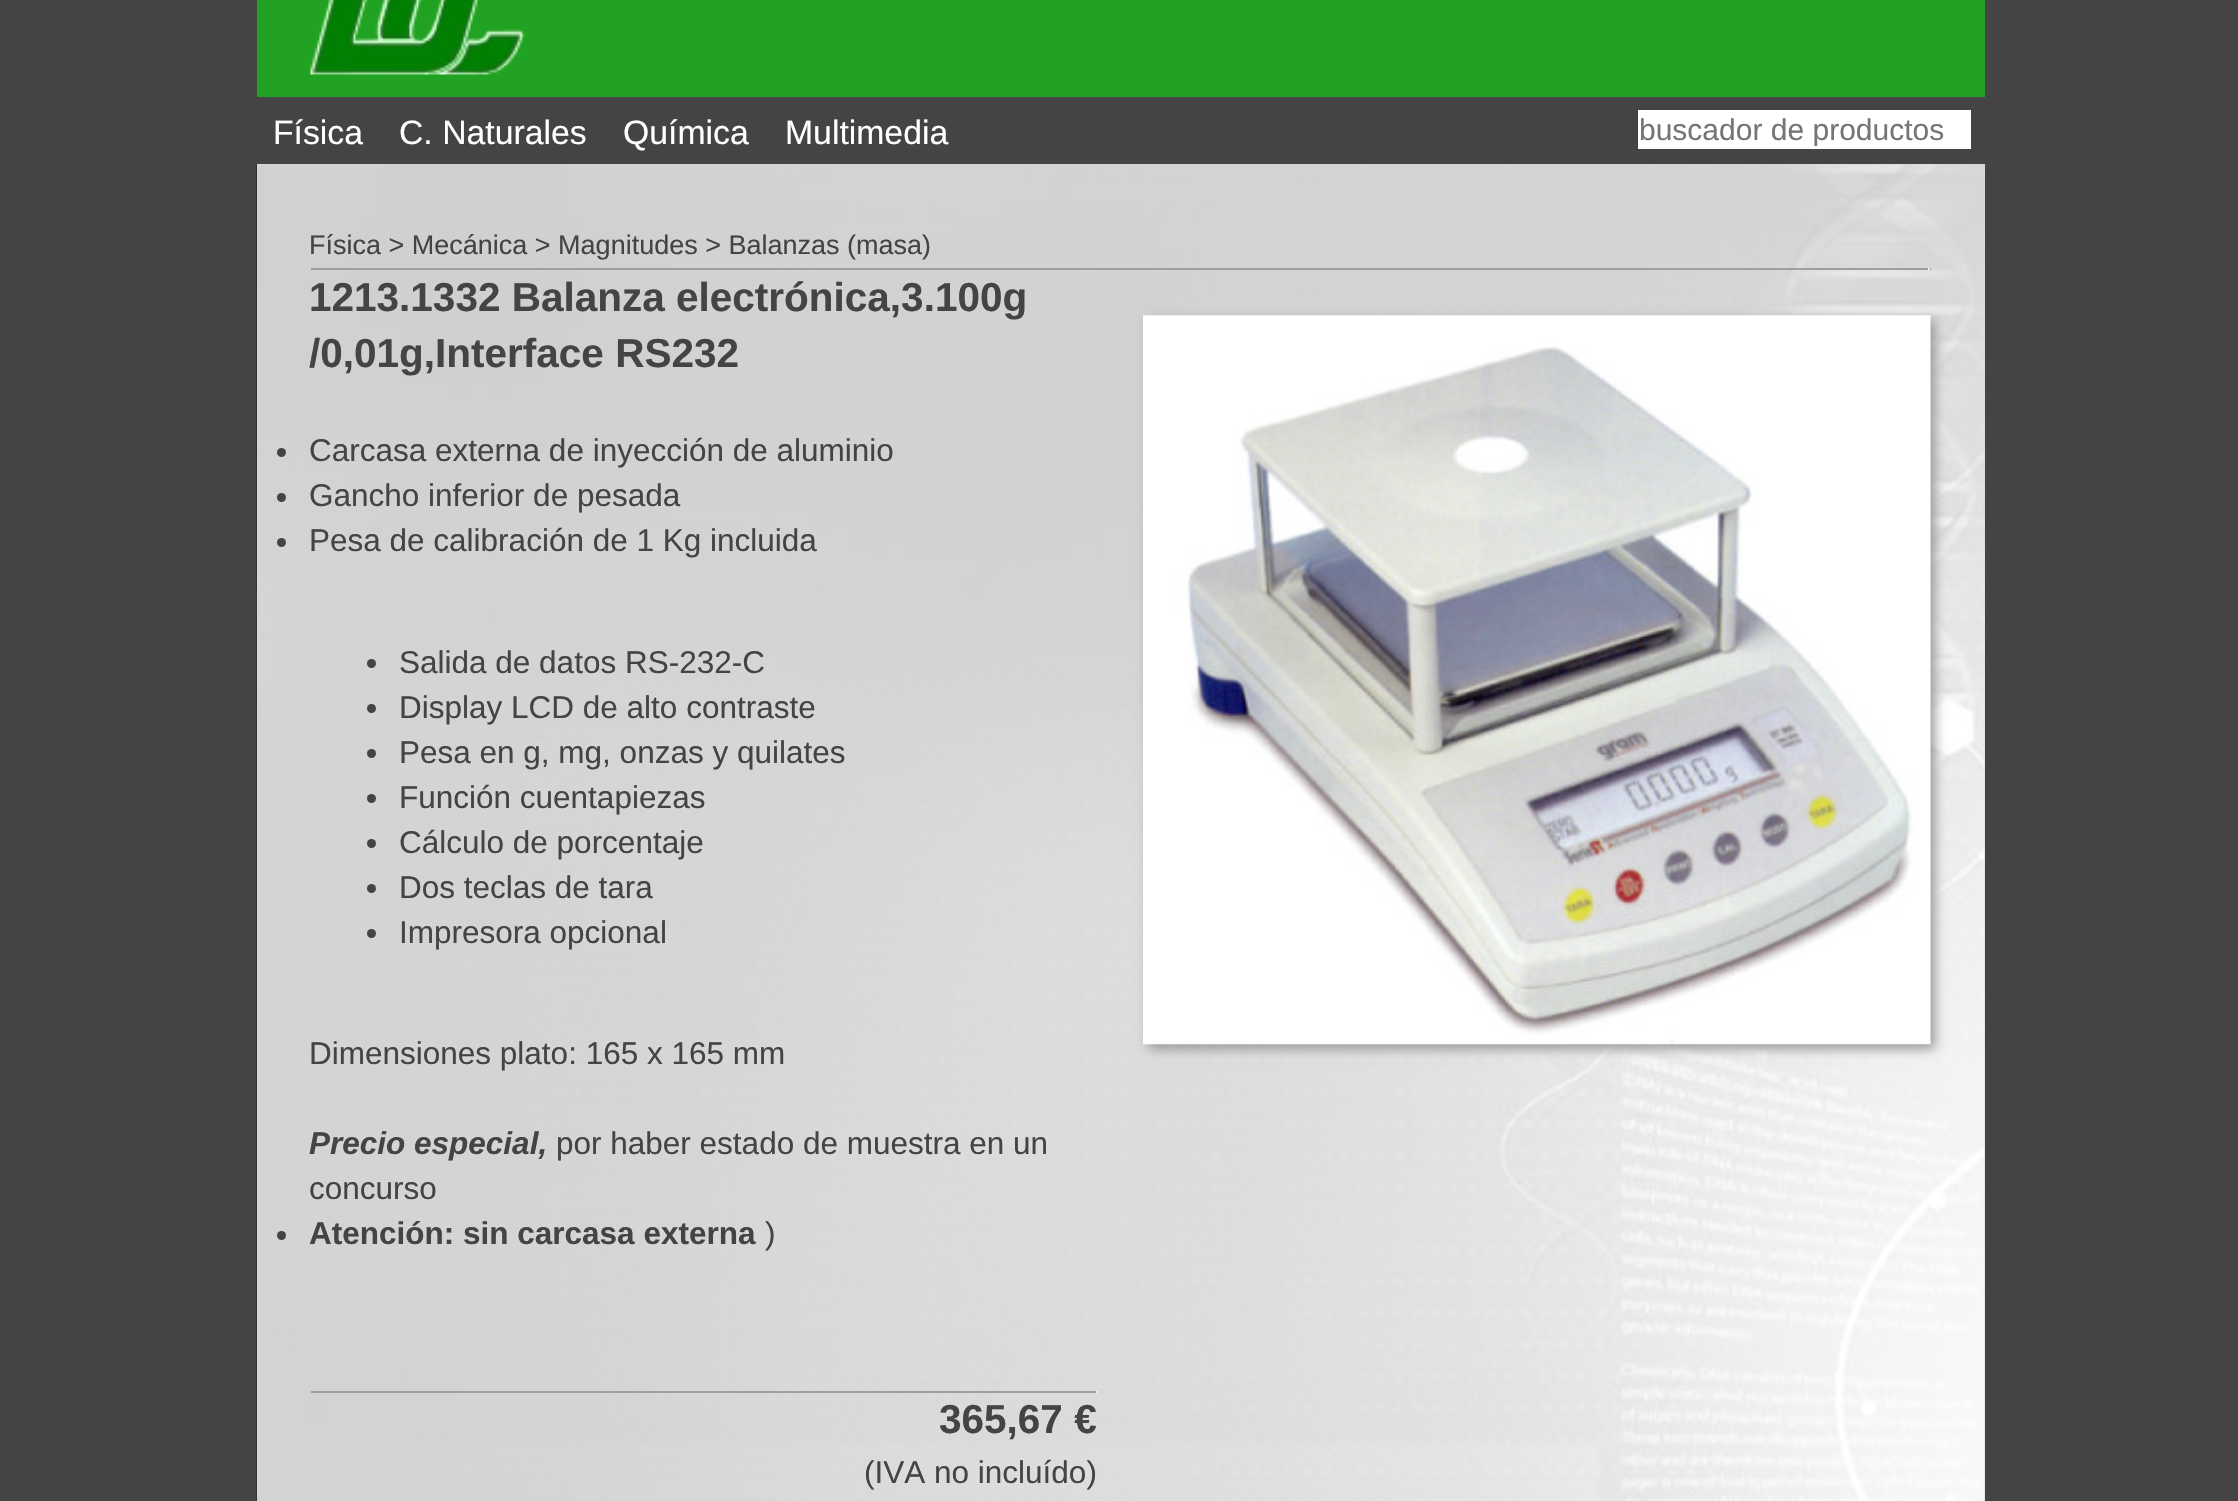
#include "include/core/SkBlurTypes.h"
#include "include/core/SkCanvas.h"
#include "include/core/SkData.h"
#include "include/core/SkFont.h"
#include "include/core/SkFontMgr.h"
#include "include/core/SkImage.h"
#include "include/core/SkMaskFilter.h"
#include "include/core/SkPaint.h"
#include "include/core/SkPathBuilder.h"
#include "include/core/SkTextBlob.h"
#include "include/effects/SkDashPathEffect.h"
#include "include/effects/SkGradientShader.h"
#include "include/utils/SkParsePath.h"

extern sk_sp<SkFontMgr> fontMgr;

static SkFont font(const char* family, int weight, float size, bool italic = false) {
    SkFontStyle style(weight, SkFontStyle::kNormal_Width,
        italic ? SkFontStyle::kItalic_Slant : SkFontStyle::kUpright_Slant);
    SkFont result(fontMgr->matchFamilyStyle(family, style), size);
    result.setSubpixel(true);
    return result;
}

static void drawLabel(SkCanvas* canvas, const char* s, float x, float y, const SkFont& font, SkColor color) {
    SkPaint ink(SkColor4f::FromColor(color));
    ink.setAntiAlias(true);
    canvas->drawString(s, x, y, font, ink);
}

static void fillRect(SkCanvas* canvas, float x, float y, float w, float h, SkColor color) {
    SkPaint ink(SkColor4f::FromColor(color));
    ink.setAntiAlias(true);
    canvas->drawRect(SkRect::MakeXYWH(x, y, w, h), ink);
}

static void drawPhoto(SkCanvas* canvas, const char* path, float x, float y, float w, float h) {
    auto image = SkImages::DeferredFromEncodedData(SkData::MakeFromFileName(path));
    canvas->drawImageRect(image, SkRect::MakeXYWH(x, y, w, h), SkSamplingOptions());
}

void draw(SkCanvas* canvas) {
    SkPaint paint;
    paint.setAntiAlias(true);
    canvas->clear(0xFF444444);
    fillRect(canvas, 257, 164, 1728, 1337, 0xFFDADADA);
    fillRect(canvas, 257, 0, 1728, 97, 0xFF22A222);
    drawPhoto(canvas, "assets/img1.png", 310, 0, 215, 75);
    SkFont font1 = font("Liberation Sans", 400, 33.75f);
    drawLabel(canvas, "Física", 273, 144, font1, 0xFFFFFFFF);
    drawLabel(canvas, "C. Naturales", 399, 144, font1, 0xFFFFFFFF);
    drawLabel(canvas, "Química", 623, 144, font1, 0xFFFFFFFF);
    drawLabel(canvas, "Multimedia", 785, 144, font1, 0xFFFFFFFF);
    fillRect(canvas, 1638, 110, 333, 39, 0xFFFFFFFF);
    canvas->save();
    canvas->clipRect(SkRect::MakeXYWH(1640, 113, 329, 33));
    SkFont font2 = font("Liberation Sans", 400, 30);
    drawLabel(canvas, "buscador de productos", 1639, 140, font2, 0xFF757575);
    canvas->restore();
    drawPhoto(canvas, "assets/img2.png", 256, 164, 1729, 1337);
    SkFont font3 = font("Liberation Sans", 400, 27);
    drawLabel(canvas, "Física > Mecánica > Magnitudes > Balanzas (masa)", 309, 254, font3, 0xFF444444);
    fillRect(canvas, 311, 268, 1620, 2, 0xFF9F9F9F);
    fillRect(canvas, 1928, 268, 2, 2, 0xFFEEEEEE);
    SkFont font4 = font("Liberation Sans", 700, 40.5f);
    drawLabel(canvas, "1213.1332 Balanza electrónica,3.100g", 309, 311, font4, 0xFF444444);
    drawLabel(canvas, "/0,01g,Interface RS232", 309, 367, font4, 0xFF444444);
    paint.setColor(0xFF444444);
    canvas->drawCircle(281.5f, 452.5f, 4.5f, paint);
    SkFont font5 = font("Liberation Sans", 400, 31.5f);
    drawLabel(canvas, "Carcasa externa de inyección de aluminio", 309, 461, font5, 0xFF444444);
    canvas->drawCircle(281.5f, 497.5f, 4.5f, paint);
    drawLabel(canvas, "Gancho inferior de pesada", 309, 506, font5, 0xFF444444);
    canvas->drawCircle(281.5f, 542.5f, 4.5f, paint);
    drawLabel(canvas, "Pesa de calibración de 1 Kg incluida", 309, 551, font5, 0xFF444444);
    canvas->drawCircle(371.5f, 663.5f, 4.5f, paint);
    drawLabel(canvas, "Salida de datos RS-232-C", 399, 673, font5, 0xFF444444);
    canvas->drawCircle(371.5f, 708.5f, 4.5f, paint);
    drawLabel(canvas, "Display LCD de alto contraste", 399, 718, font5, 0xFF444444);
    canvas->drawCircle(371.5f, 753.5f, 4.5f, paint);
    drawLabel(canvas, "Pesa en g, mg, onzas y quilates", 399, 763, font5, 0xFF444444);
    canvas->drawCircle(371.5f, 798.5f, 4.5f, paint);
    drawLabel(canvas, "Función cuentapiezas", 399, 808, font5, 0xFF444444);
    canvas->drawCircle(371.5f, 843.5f, 4.5f, paint);
    drawLabel(canvas, "Cálculo de porcentaje", 399, 853, font5, 0xFF444444);
    canvas->drawCircle(371.5f, 888.5f, 4.5f, paint);
    drawLabel(canvas, "Dos teclas de tara", 399, 898, font5, 0xFF444444);
    canvas->drawCircle(371.5f, 933.5f, 4.5f, paint);
    drawLabel(canvas, "Impresora opcional", 399, 943, font5, 0xFF444444);
    drawLabel(canvas, "Dimensiones plato: 165 x 165 mm", 309, 1064, font5, 0xFF444444);
    SkFont font6 = font("Liberation Sans", 700, 31.5f, true);
    drawLabel(canvas, "Precio especial,", 309, 1154, font6, 0xFF444444);
    drawLabel(canvas, "por haber estado de muestra en un", 556, 1154, font5, 0xFF444444);
    drawLabel(canvas, "concurso", 309, 1199, font5, 0xFF444444);
    canvas->drawCircle(281.5f, 1235.5f, 4.5f, paint);
    SkFont font7 = font("Liberation Sans", 700, 31.5f);
    drawLabel(canvas, "Atención: sin carcasa externa", 309, 1244, font7, 0xFF444444);
    drawLabel(canvas, ")", 765, 1244, font5, 0xFF444444);
    fillRect(canvas, 311, 1391, 787, 2, 0xFF9F9F9F);
    fillRect(canvas, 1096, 1391, 2, 2, 0xFFEEEEEE);
    drawLabel(canvas, "365,67 €", 939, 1433, font4, 0xFF444444);
    drawLabel(canvas, "(IVA no incluído)", 864, 1483, font5, 0xFF444444);
    paint.setColor(0xFF999999);
    paint.setMaskFilter(SkMaskFilter::MakeBlur(kNormal_SkBlurStyle, 5.5f));
    canvas->drawRect(SkRect::MakeXYWH(1148, 320, 787, 729), paint);
    paint.setMaskFilter(nullptr);
    drawPhoto(canvas, "assets/img3.png", 1143, 315, 788, 730);
}
